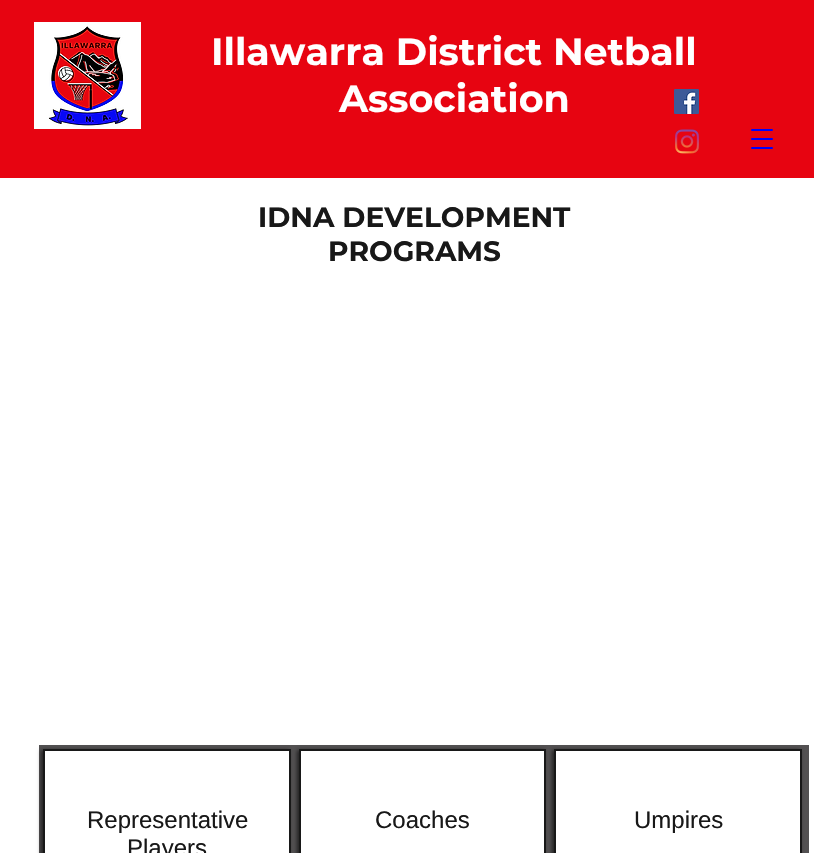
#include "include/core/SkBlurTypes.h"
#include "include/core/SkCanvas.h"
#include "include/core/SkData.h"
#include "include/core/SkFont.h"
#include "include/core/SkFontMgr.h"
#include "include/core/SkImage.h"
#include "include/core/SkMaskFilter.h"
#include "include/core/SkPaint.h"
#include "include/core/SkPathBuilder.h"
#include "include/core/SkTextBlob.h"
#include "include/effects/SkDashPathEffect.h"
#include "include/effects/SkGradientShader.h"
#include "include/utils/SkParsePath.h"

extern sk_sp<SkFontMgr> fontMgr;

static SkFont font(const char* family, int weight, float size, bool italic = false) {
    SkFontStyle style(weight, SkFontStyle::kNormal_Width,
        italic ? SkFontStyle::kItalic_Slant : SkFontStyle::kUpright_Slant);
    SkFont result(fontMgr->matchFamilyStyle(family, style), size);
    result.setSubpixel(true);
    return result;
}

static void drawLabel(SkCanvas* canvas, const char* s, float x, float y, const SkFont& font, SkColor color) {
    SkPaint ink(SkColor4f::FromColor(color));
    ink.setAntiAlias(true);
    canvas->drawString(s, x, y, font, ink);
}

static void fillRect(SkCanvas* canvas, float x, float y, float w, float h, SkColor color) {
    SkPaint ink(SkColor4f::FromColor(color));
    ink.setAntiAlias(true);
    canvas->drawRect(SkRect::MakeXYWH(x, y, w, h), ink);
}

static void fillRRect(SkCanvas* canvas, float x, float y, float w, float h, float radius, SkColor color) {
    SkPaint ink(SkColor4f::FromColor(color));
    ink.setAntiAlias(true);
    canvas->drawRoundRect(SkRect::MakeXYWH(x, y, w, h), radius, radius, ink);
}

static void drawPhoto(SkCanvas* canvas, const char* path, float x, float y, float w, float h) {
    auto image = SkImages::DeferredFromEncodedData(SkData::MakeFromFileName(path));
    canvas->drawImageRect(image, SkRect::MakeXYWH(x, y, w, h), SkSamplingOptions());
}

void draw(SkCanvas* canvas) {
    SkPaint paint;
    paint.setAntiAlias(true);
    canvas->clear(0xFFFFFFFF);
    fillRect(canvas, 0, 0, 814, 178, 0xFFE70411);
    drawPhoto(canvas, "assets/img1.png", 34, 22, 107, 107);
    SkFont font1 = font("Montserrat", 700, 38);
    drawLabel(canvas, "Illawarra District Netball", 211, 65, font1, 0xFFFFFFFF);
    drawLabel(canvas, "Association", 339, 112, font1, 0xFFFFFFFF);
    drawPhoto(canvas, "assets/img2.png", 674, 89, 25, 25);
    drawPhoto(canvas, "assets/img3.png", 675, 129, 24, 25);
    fillRRect(canvas, 751, 129, 22, 2, 1, 0xFF0001FC);
    fillRRect(canvas, 751, 138, 22, 2, 1, 0xFF0001FC);
    fillRRect(canvas, 751, 147, 22, 2, 1, 0xFF0001FC);
    SkFont font2 = font("Montserrat", 700, 28);
    drawLabel(canvas, "IDNA DEVELOPMENT", 258, 227, font2, 0xFF181818);
    drawLabel(canvas, "PROGRAMS", 328, 261, font2, 0xFF181818);
    fillRect(canvas, 39, 745, 770, 108, 0xFF535152);
    paint.setColor(0x99000000);
    paint.setMaskFilter(SkMaskFilter::MakeBlur(kNormal_SkBlurStyle, 2));
    canvas->drawRect(SkRect::MakeXYWH(41, 750, 248, 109), paint);
    paint.setMaskFilter(nullptr);
    paint.setColor(0xFFFFFFFF);
    canvas->drawRect(SkRect::MakeXYWH(44, 750, 246, 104), paint);
    paint.setStroke(true);
    paint.setStrokeWidth(2);
    paint.setColor(0xFF181818);
    canvas->drawRect(SkRect::MakeXYWH(44, 750, 246, 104), paint);
    SkFont font3 = font("Liberation Sans", 400, 24);
    drawLabel(canvas, "Representative", 87, 828, font3, 0xFF181818);
    drawLabel(canvas, "Players", 127, 856, font3, 0xFF181818);
    paint.setStroke(false);
    paint.setColor(0x99000000);
    paint.setMaskFilter(SkMaskFilter::MakeBlur(kNormal_SkBlurStyle, 2));
    canvas->drawRect(SkRect::MakeXYWH(297, 750, 247, 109), paint);
    paint.setMaskFilter(nullptr);
    paint.setColor(0xFFFFFFFF);
    canvas->drawRect(SkRect::MakeXYWH(300, 750, 245, 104), paint);
    paint.setStroke(true);
    paint.setColor(0xFF181818);
    canvas->drawRect(SkRect::MakeXYWH(300, 750, 245, 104), paint);
    drawLabel(canvas, "Coaches", 375, 828, font3, 0xFF181818);
    paint.setStroke(false);
    paint.setColor(0x99000000);
    paint.setMaskFilter(SkMaskFilter::MakeBlur(kNormal_SkBlurStyle, 2));
    canvas->drawRect(SkRect::MakeXYWH(552, 750, 248, 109), paint);
    paint.setMaskFilter(nullptr);
    paint.setColor(0xFFFFFFFF);
    canvas->drawRect(SkRect::MakeXYWH(555, 750, 246, 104), paint);
    paint.setStroke(true);
    paint.setColor(0xFF181818);
    canvas->drawRect(SkRect::MakeXYWH(555, 750, 246, 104), paint);
    drawLabel(canvas, "Umpires", 634, 828, font3, 0xFF181818);
}
